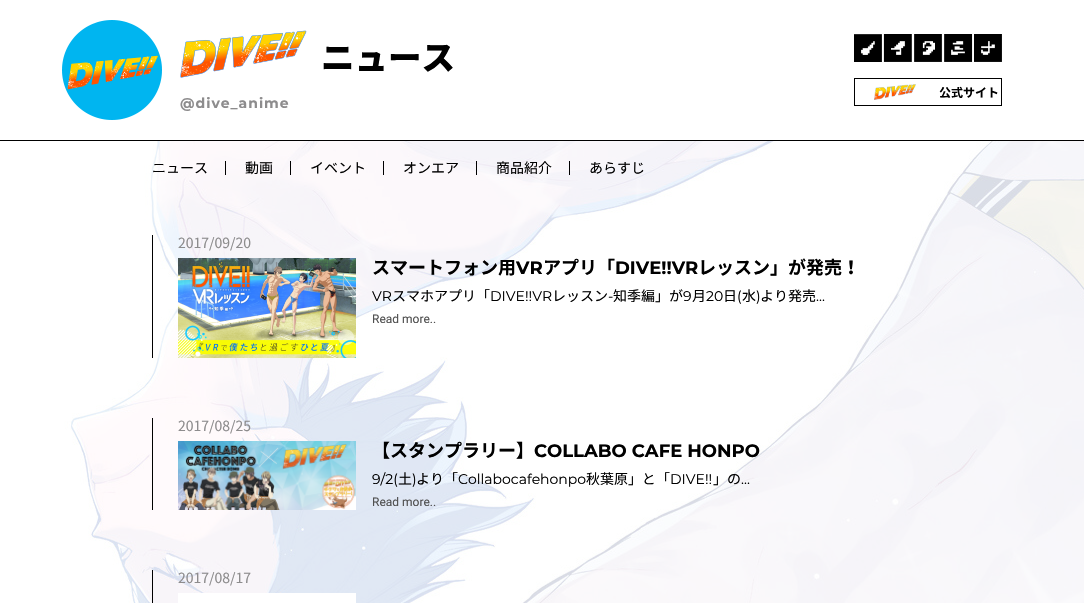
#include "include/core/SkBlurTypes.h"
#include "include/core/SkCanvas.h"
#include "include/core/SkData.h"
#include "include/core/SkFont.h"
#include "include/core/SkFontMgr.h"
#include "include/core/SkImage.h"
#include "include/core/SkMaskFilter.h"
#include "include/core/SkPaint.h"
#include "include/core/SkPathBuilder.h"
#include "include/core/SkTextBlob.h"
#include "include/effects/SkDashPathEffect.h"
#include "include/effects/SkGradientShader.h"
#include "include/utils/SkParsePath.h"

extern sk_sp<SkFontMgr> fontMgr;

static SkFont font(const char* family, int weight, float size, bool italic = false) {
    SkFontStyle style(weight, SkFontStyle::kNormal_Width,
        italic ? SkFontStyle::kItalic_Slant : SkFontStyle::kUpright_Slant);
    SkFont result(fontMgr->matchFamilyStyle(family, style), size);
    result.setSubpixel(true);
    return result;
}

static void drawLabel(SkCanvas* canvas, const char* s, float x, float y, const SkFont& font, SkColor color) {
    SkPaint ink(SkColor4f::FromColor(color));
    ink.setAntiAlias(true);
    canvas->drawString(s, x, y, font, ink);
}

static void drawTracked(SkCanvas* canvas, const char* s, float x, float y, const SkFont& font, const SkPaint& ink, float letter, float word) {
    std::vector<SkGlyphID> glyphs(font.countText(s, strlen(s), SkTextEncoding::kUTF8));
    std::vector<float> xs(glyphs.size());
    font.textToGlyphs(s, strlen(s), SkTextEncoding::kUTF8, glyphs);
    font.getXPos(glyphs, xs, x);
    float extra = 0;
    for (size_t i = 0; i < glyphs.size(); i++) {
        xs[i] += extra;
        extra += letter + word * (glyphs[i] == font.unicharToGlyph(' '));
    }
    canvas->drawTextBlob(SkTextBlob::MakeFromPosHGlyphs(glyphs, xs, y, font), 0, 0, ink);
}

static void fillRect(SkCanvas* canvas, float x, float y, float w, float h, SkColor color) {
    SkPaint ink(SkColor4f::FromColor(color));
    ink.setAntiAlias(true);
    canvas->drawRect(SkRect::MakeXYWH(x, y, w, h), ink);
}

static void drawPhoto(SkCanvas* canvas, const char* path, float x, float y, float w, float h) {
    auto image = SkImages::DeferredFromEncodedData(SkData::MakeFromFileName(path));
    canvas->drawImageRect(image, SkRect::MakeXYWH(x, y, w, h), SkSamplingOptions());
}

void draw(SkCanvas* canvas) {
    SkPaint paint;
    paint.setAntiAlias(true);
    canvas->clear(0xFFFFFFFF);
    fillRect(canvas, 0, 140, 1084, 1, 0xFF000000);
    drawPhoto(canvas, "assets/img1.png", 62, 20, 100, 100);
    drawPhoto(canvas, "assets/img2.png", 180, 30, 127, 48);
    SkFont font1 = font("Noto Sans JP", 900, 33.5f);
    drawLabel(canvas, "ニュース", 321, 70, font1, 0xFF000000);
    drawPhoto(canvas, "assets/img3.png", 854, 34, 148, 28);
    paint.setStroke(true);
    paint.setStrokeWidth(1);
    paint.setColor(0xFF000000);
    canvas->drawRect(SkRect::MakeXYWH(854.5f, 78.5f, 147, 27), paint);
    drawPhoto(canvas, "assets/img4.png", 874, 84, 42, 16);
    SkFont font2 = font("Noto Sans JP", 700, 12);
    drawLabel(canvas, "公式サイト", 939, 97, font2, 0xFF000000);
    SkFont font3 = font("Montserrat", 700, 14);
    paint.setStroke(false);
    paint.setColor(0xFF8D8C8D);
    drawTracked(canvas, "@dive_anime", 180, 108, font3, paint, 1, 0);
    drawPhoto(canvas, "assets/img5.png", 64, 141, 1020, 462);
    SkFont font4 = font("Noto Sans JP", 400, 14);
    drawLabel(canvas, "ニュース", 152, 173, font4, 0xFF000000);
    fillRect(canvas, 225, 161, 1, 14, 0xFF000000);
    drawLabel(canvas, "動画", 245, 173, font4, 0xFF000000);
    fillRect(canvas, 290, 161, 1, 14, 0xFF000000);
    drawLabel(canvas, "イベント", 310, 173, font4, 0xFF000000);
    fillRect(canvas, 383, 161, 1, 14, 0xFF000000);
    drawLabel(canvas, "オンエア", 403, 173, font4, 0xFF000000);
    fillRect(canvas, 476, 161, 1, 14, 0xFF000000);
    drawLabel(canvas, "商品紹介", 496, 173, font4, 0xFF000000);
    fillRect(canvas, 569, 161, 1, 14, 0xFF000000);
    drawLabel(canvas, "あらすじ", 589, 173, font4, 0xFF000000);
    fillRect(canvas, 152, 235, 1, 123, 0xFF000000);
    drawLabel(canvas, "2017/09/20", 178, 248, font4, 0xFF8D8C8D);
    drawPhoto(canvas, "assets/img6.png", 178, 258, 178, 100);
    SkFont font5 = font("Noto Sans JP", 700, 18);
    drawLabel(canvas, "スマートフォン用", 372, 274, font5, 0xFF000000);
    SkFont font6 = font("Montserrat", 700, 18);
    drawLabel(canvas, "VR", 516, 274, font6, 0xFF000000);
    drawLabel(canvas, "アプリ「", 543, 274, font5, 0xFF000000);
    drawLabel(canvas, "DIVE!!VR", 615, 274, font6, 0xFF000000);
    drawLabel(canvas, "レッスン」が発売！", 698, 274, font5, 0xFF000000);
    SkFont font7 = font("Montserrat", 400, 14);
    drawLabel(canvas, "VR", 372, 301, font7, 0xFF000000);
    drawLabel(canvas, "スマホアプリ「", 392, 301, font4, 0xFF000000);
    drawLabel(canvas, "DIVE!!VR", 490, 301, font7, 0xFF000000);
    drawLabel(canvas, "レッスン", 552, 301, font4, 0xFF000000);
    drawLabel(canvas, "-", 608, 301, font7, 0xFF000000);
    drawLabel(canvas, "知季編」が", 613, 301, font4, 0xFF000000);
    drawLabel(canvas, "9", 683, 301, font7, 0xFF000000);
    drawLabel(canvas, "月", 692, 301, font4, 0xFF000000);
    drawLabel(canvas, "20", 706, 301, font7, 0xFF000000);
    drawLabel(canvas, "日", 723, 301, font4, 0xFF000000);
    drawLabel(canvas, "(", 737, 301, font7, 0xFF000000);
    drawLabel(canvas, "水", 742, 301, font4, 0xFF000000);
    drawLabel(canvas, ")", 756, 301, font7, 0xFF000000);
    drawLabel(canvas, "より発売", 760, 301, font4, 0xFF000000);
    drawLabel(canvas, "...", 816, 301, font7, 0xFF000000);
    SkFont font8 = font("Roboto", 400, 12);
    drawLabel(canvas, "Read more..", 372, 323, font8, 0xFF505050);
    fillRect(canvas, 152, 418, 1, 92, 0xFF000000);
    drawLabel(canvas, "2017/08/25", 178, 431, font4, 0xFF8D8C8D);
    drawPhoto(canvas, "assets/img7.png", 178, 441, 178, 69);
    drawLabel(canvas, "【スタンプラリー】", 372, 457, font5, 0xFF000000);
    drawLabel(canvas, "COLLABO CAFE HONPO", 534, 457, font6, 0xFF000000);
    drawLabel(canvas, "9/2(", 372, 484, font7, 0xFF000000);
    drawLabel(canvas, "土", 398, 484, font4, 0xFF000000);
    drawLabel(canvas, ")", 412, 484, font7, 0xFF000000);
    drawLabel(canvas, "より「", 416, 484, font4, 0xFF000000);
    drawLabel(canvas, "Collabocafehonpo", 458, 484, font7, 0xFF000000);
    drawLabel(canvas, "秋葉原」と「", 586, 484, font4, 0xFF000000);
    drawLabel(canvas, "DIVE!!", 670, 484, font7, 0xFF000000);
    drawLabel(canvas, "」の", 713, 484, font4, 0xFF000000);
    drawLabel(canvas, "...", 741, 484, font7, 0xFF000000);
    drawLabel(canvas, "Read more..", 372, 506, font8, 0xFF505050);
    fillRect(canvas, 152, 570, 1, 33, 0xFF000000);
    drawLabel(canvas, "2017/08/17", 178, 583, font4, 0xFF8D8C8D);
    fillRect(canvas, 178, 593, 178, 10, 0xFFFFFFFF);
}
